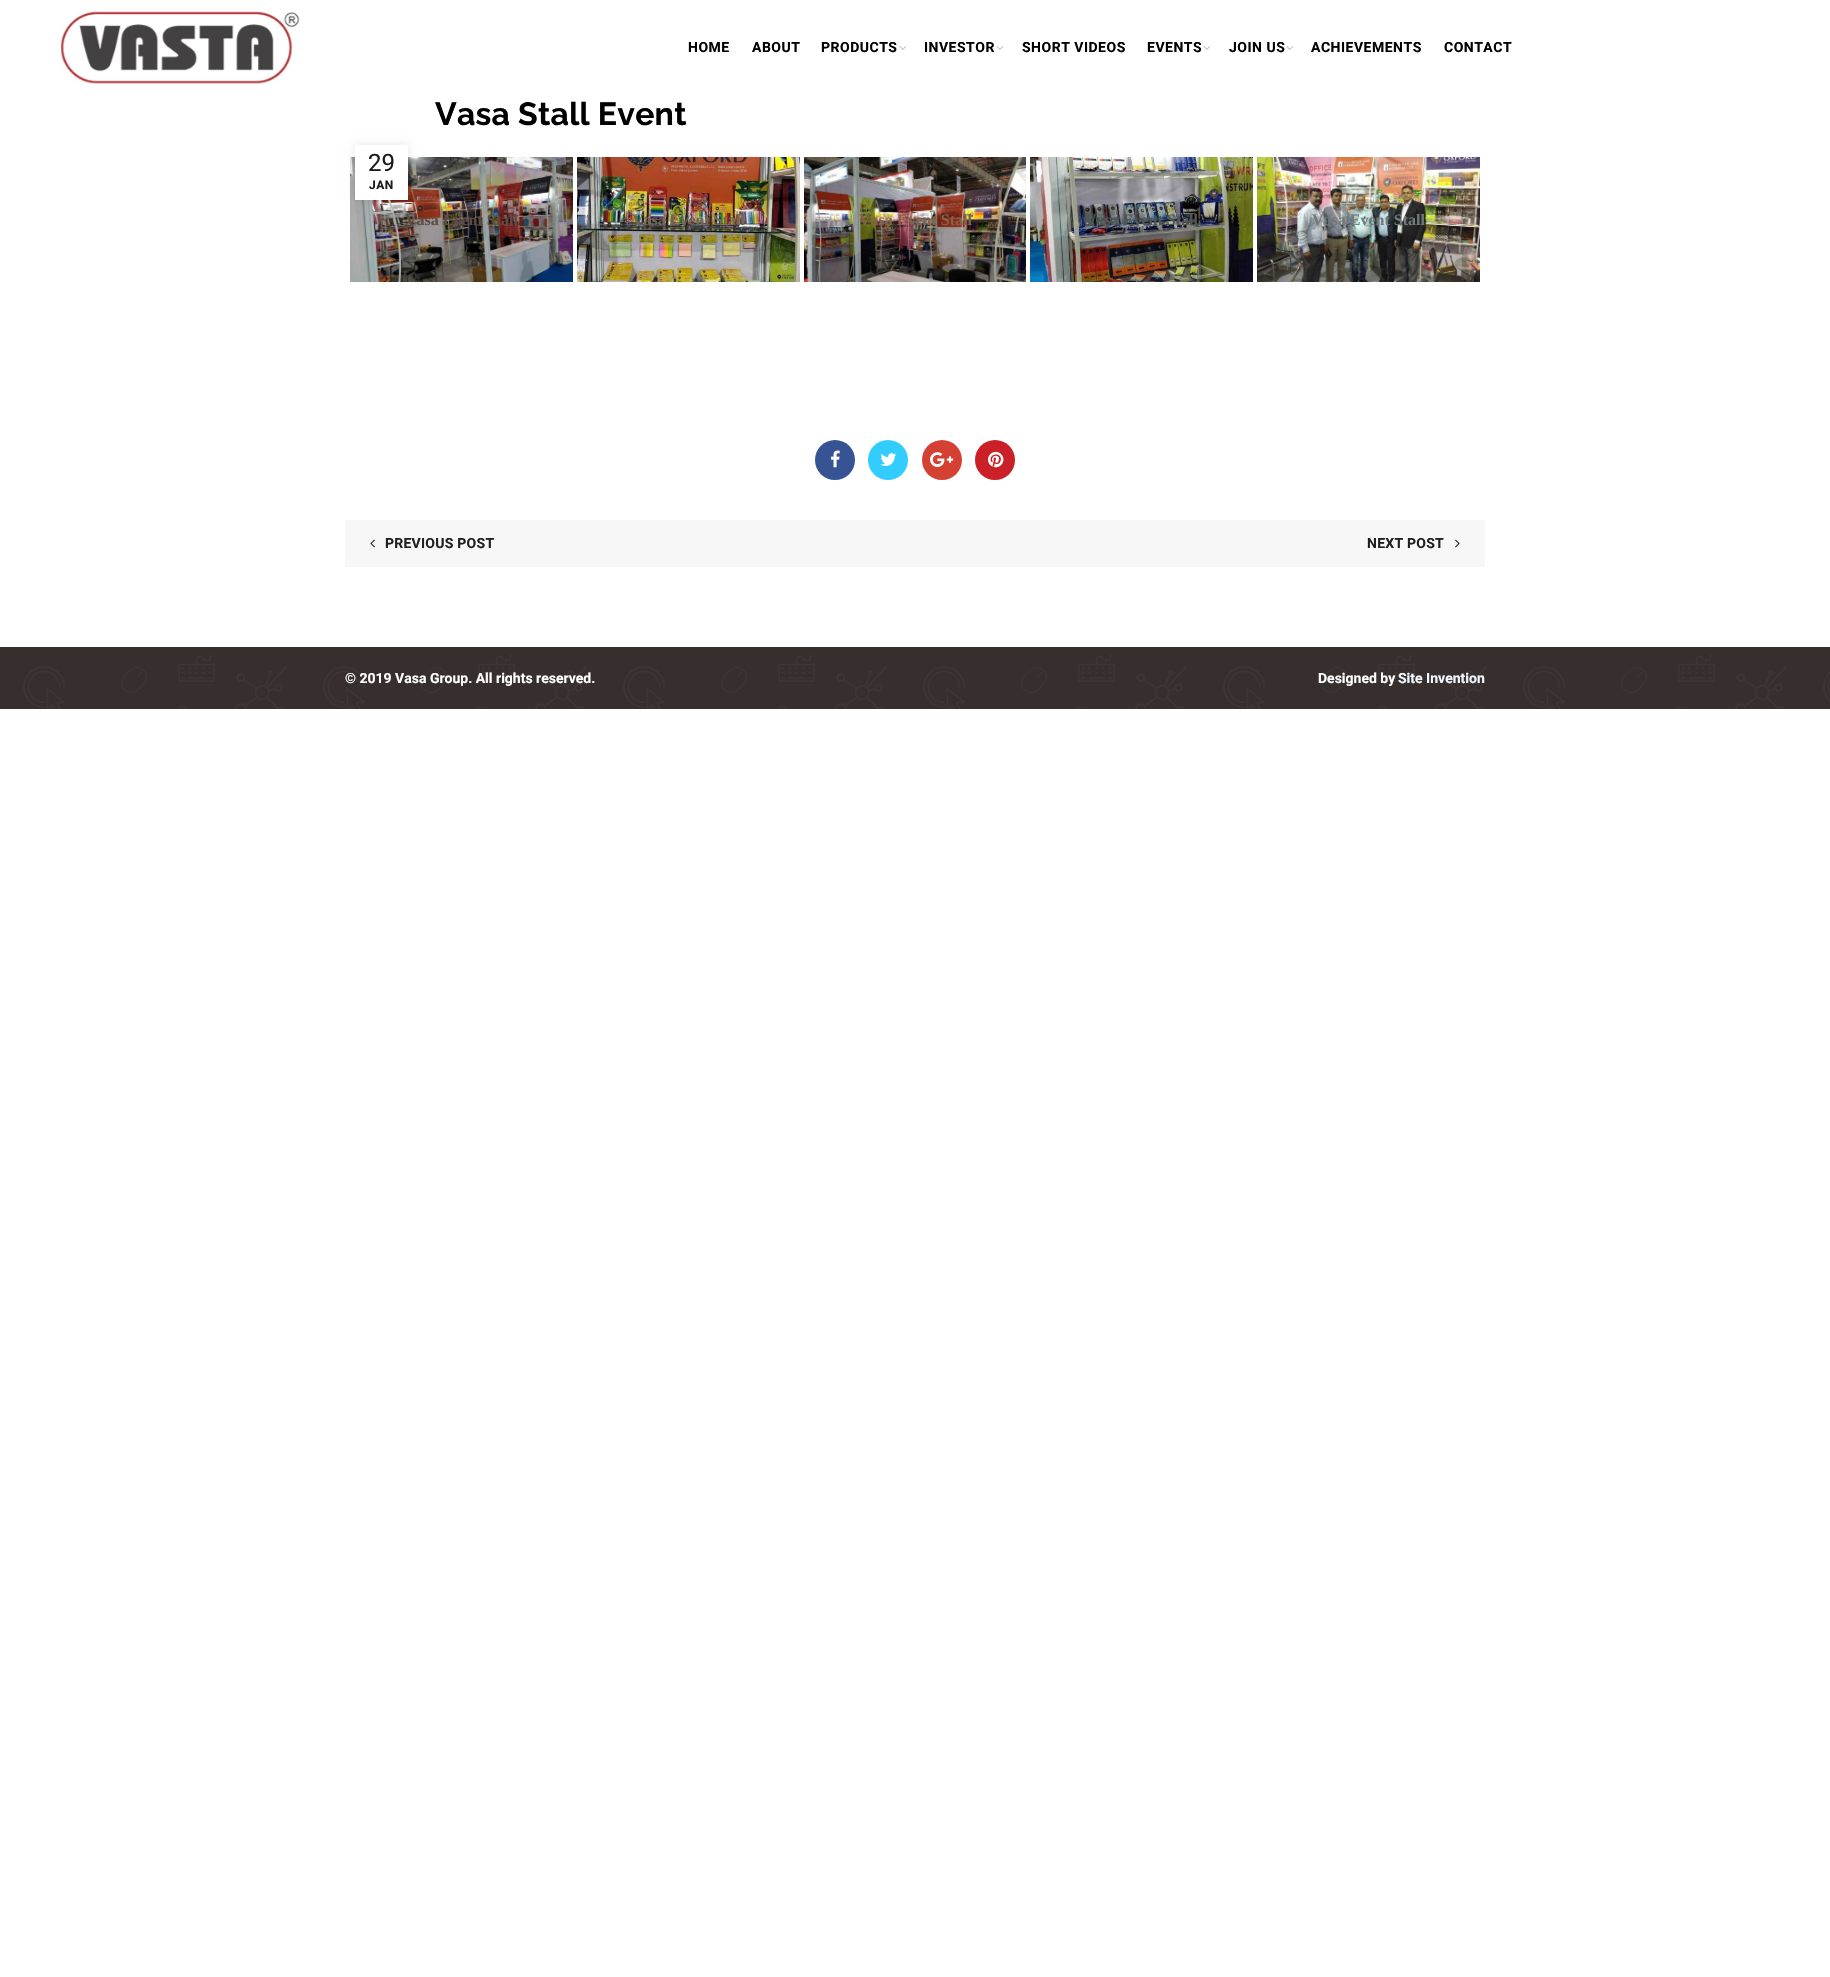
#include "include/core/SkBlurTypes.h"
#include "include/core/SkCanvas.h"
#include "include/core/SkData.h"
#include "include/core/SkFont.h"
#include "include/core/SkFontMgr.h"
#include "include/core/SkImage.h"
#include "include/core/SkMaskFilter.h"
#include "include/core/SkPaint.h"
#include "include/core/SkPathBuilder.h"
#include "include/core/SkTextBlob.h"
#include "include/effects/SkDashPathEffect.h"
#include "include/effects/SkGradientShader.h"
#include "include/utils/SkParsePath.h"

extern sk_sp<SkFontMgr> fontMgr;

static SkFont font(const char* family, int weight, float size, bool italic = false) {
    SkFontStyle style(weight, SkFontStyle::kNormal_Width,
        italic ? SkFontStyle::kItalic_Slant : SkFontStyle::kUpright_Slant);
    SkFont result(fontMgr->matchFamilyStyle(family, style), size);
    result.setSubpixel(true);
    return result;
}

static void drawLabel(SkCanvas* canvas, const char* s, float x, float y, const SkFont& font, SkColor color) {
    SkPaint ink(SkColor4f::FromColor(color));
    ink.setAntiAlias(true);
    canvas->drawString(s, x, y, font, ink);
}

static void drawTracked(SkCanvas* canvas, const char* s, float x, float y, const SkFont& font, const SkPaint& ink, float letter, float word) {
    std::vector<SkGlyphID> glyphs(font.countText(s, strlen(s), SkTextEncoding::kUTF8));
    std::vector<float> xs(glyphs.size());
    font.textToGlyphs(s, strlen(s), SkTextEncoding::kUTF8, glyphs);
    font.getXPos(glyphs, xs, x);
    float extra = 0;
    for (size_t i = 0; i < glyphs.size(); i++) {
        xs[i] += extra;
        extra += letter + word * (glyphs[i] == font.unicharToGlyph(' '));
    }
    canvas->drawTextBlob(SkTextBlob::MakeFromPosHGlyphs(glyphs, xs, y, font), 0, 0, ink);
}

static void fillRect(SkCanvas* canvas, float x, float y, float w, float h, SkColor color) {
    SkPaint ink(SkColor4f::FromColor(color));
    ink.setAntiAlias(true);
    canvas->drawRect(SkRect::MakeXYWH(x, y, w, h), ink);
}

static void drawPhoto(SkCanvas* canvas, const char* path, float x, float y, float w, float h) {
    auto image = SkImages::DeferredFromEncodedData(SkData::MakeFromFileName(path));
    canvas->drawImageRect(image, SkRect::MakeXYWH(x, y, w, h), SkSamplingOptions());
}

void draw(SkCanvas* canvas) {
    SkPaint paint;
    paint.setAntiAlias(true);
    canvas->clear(0xFFFFFFFF);
    drawPhoto(canvas, "assets/img1.png", 61, 11, 239, 73);
    SkFont font1 = font("Roboto", 700, 14);
    paint.setColor(0xFF000000);
    drawTracked(canvas, "HOME", 688, 52, font1, paint, 0.5f, 0);
    drawTracked(canvas, "ABOUT", 752, 52, font1, paint, 0.5f, 0);
    drawTracked(canvas, "PRODUCTS", 821, 52, font1, paint, 0.5f, 0);
    drawPhoto(canvas, "assets/img2.png", 899, 46, 8, 4);
    drawTracked(canvas, "INVESTOR", 924, 52, font1, paint, 0.5f, 0);
    drawPhoto(canvas, "assets/img2.png", 996, 46, 8, 4);
    drawTracked(canvas, "SHORT VIDEOS", 1022, 52, font1, paint, 0.5f, 0);
    drawTracked(canvas, "EVENTS", 1147, 52, font1, paint, 0.5f, 0);
    drawPhoto(canvas, "assets/img2.png", 1203, 46, 8, 4);
    drawTracked(canvas, "JOIN US", 1229, 52, font1, paint, 0.5f, 0);
    drawPhoto(canvas, "assets/img2.png", 1286, 46, 8, 4);
    drawTracked(canvas, "ACHIEVEMENTS", 1311, 52, font1, paint, 0.5f, 0);
    drawTracked(canvas, "CONTACT", 1444, 52, font1, paint, 0.5f, 0);
    SkFont font2 = font("Raleway", 700, 32);
    drawTracked(canvas, "Vasa Stall Event", 435, 125, font2, paint, 0.25f, 0);
    drawPhoto(canvas, "assets/img3.png", 350, 157, 223, 125);
    paint.setColor(0x1A000000);
    paint.setMaskFilter(SkMaskFilter::MakeBlur(kNormal_SkBlurStyle, 4.5f));
    canvas->drawRect(SkRect::MakeXYWH(355, 145, 53, 55), paint);
    paint.setMaskFilter(nullptr);
    fillRect(canvas, 355, 145, 53, 55, 0xFFFFFFFF);
    SkFont font3 = font("Roboto", 400, 24);
    drawLabel(canvas, "29", 368, 171, font3, 0xFF1B1919);
    SkFont font4 = font("Roboto", 700, 12);
    paint.setColor(0xFF1B1919);
    drawTracked(canvas, "JAN", 369, 189, font4, paint, 0.5f, 0);
    SkFont font5 = font("Liberation Serif", 700, 16);
    drawLabel(canvas, "Vasa Event Stall", 405, 225, font5, 0xFF5D4B44);
    drawPhoto(canvas, "assets/img4.png", 577, 157, 223, 125);
    drawLabel(canvas, "Vasa Event Stall", 632, 225, font5, 0xFF736752);
    drawPhoto(canvas, "assets/img5.png", 804, 157, 222, 125);
    drawLabel(canvas, "Vasa Event Stall", 859, 225, font5, 0xFF84614A);
    drawPhoto(canvas, "assets/img6.png", 1030, 157, 223, 125);
    drawLabel(canvas, "Vasa Event Stall", 1085, 225, font5, 0xFF4F5559);
    drawPhoto(canvas, "assets/img7.png", 1257, 157, 223, 125);
    drawLabel(canvas, "Vasa Event Stall", 1312, 225, font5, 0xFF707A7B);
    paint.setColor(0xFF365493);
    canvas->drawCircle(835, 460, 20, paint);
    drawPhoto(canvas, "assets/img8.png", 830, 450, 10, 18);
    paint.setColor(0xFF33CCFF);
    canvas->drawCircle(888, 460, 20, paint);
    drawPhoto(canvas, "assets/img9.png", 880, 453, 17, 13);
    paint.setColor(0xFFD44132);
    canvas->drawCircle(942, 460, 20, paint);
    drawPhoto(canvas, "assets/img10.png", 930, 452, 24, 15);
    paint.setColor(0xFFCB2027);
    canvas->drawCircle(995, 460, 20, paint);
    drawPhoto(canvas, "assets/img11.png", 988, 451, 16, 17);
    fillRect(canvas, 345, 520, 1140, 47, 0xFFF7F7F7);
    drawPhoto(canvas, "assets/img12.png", 370, 539, 5, 9);
    paint.setColor(0xFF202020);
    drawTracked(canvas, "PREVIOUS POST", 385, 548, font1, paint, 0.25f, 0);
    drawTracked(canvas, "NEXT POST", 1367, 548, font1, paint, 0.25f, 0);
    drawPhoto(canvas, "assets/img13.png", 1455, 539, 5, 9);
    drawPhoto(canvas, "assets/img14.png", 0, 647, 1830, 62);
    drawLabel(canvas, "© 2019 Vasa Group. All rights reserved.", 345, 683, font1, 0xFFFFFFFF);
    drawLabel(canvas, "Designed by", 1318, 683, font1, 0xFFFFFFFF);
    drawLabel(canvas, "Site Invention", 1398, 683, font1, 0xFFF0F8FF);
}
